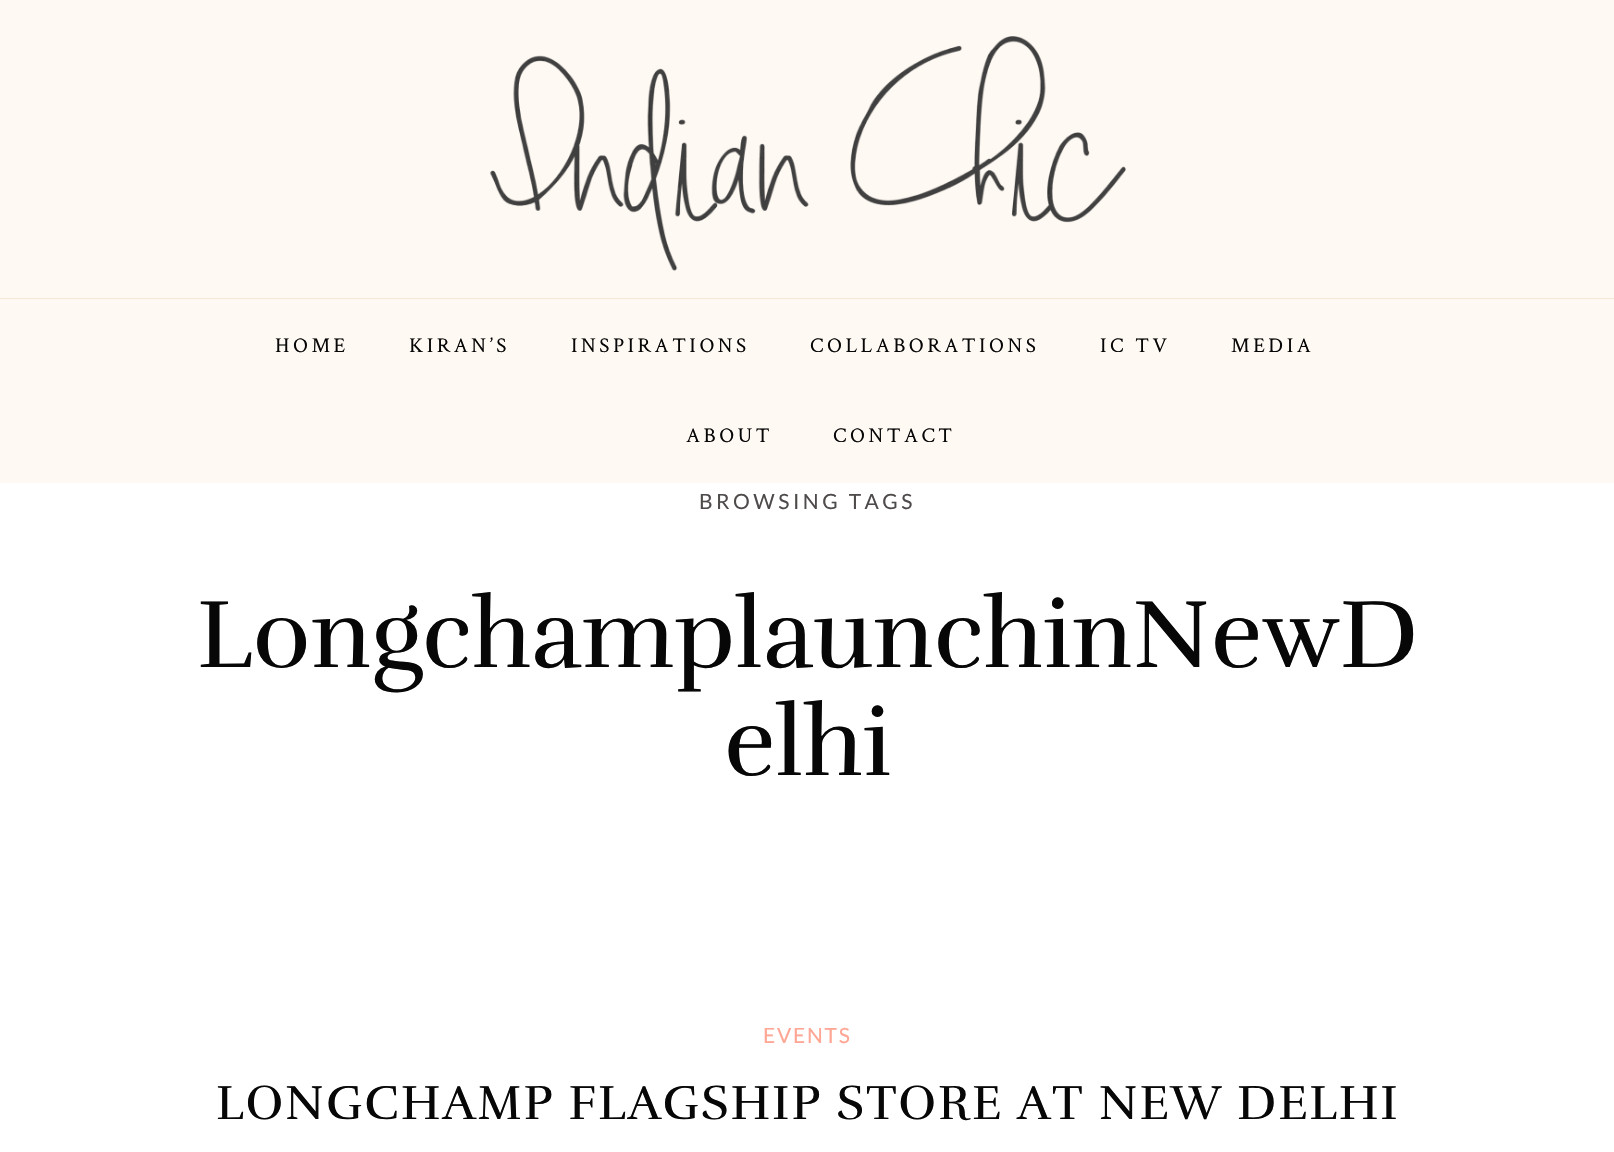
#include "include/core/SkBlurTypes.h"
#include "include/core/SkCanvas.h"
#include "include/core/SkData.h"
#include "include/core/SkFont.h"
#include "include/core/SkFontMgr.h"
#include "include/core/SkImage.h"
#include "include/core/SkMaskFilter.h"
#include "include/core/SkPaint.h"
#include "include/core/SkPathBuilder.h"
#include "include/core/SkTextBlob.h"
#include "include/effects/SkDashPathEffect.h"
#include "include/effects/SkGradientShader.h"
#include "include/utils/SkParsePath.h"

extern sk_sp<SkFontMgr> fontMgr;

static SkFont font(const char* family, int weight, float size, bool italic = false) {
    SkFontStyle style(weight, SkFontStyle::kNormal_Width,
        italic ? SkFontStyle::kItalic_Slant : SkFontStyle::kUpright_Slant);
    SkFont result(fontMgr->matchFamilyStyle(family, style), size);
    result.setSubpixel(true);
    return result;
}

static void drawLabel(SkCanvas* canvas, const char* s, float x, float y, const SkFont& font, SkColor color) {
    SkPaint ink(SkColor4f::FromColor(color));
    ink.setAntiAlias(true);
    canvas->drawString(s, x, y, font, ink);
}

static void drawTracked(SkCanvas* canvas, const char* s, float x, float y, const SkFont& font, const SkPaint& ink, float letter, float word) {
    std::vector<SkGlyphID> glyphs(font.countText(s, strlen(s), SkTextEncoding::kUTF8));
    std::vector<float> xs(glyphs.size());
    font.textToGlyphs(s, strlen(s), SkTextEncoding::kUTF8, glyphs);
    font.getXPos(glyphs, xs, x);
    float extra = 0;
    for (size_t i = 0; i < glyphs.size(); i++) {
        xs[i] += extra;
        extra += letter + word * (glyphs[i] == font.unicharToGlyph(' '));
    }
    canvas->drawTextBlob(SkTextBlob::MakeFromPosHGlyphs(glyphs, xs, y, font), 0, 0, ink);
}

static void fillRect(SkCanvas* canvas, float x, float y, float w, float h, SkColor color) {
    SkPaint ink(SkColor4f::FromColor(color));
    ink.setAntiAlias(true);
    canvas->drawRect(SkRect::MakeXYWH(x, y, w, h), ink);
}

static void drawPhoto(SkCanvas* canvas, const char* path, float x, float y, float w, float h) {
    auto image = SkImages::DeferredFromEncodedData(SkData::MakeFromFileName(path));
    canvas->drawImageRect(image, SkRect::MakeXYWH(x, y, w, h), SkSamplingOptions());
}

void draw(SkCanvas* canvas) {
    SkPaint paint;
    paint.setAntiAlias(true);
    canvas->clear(0xFFFFFFFF);
    fillRect(canvas, 0, 0, 1614, 298, 0xFFFFF9F3);
    fillRect(canvas, 0, 298, 1614, 1, 0xFFF8E6D4);
    drawPhoto(canvas, "assets/img1.png", 490, 36, 636, 235);
    fillRect(canvas, 0, 299, 1614, 184, 0xFFFFF9F3);
    SkFont font1 = font("Crimson Text", 400, 21);
    paint.setColor(0xFF070707);
    drawTracked(canvas, "HOME", 275, 352, font1, paint, 3.5f, 0);
    drawTracked(canvas, "KIRAN’S", 409, 352, font1, paint, 3.5f, 0);
    drawTracked(canvas, "INSPIRATIONS", 571, 352, font1, paint, 3.5f, 0);
    drawTracked(canvas, "COLLABORATIONS", 810, 352, font1, paint, 3.5f, 0);
    drawTracked(canvas, "IC TV", 1100, 352, font1, paint, 3.5f, 0);
    drawTracked(canvas, "MEDIA", 1231, 352, font1, paint, 3.5f, 0);
    drawTracked(canvas, "ABOUT", 686, 442, font1, paint, 3.5f, 0);
    drawTracked(canvas, "CONTACT", 833, 442, font1, paint, 3.5f, 0);
    SkFont font2 = font("Lato", 400, 21);
    paint.setColor(0xFF4F4B4B);
    drawTracked(canvas, "BROWSING TAGS", 699, 509, font2, paint, 3.5f, 0);
    SkFont font3 = font("Rufina", 400, 98);
    drawLabel(canvas, "LongchamplaunchinNewD", 197, 667, font3, 0xFF070707);
    drawLabel(canvas, "elhi", 724, 775, font3, 0xFF070707);
    paint.setColor(0xFFFFA794);
    drawTracked(canvas, "EVENTS", 763, 1043, font2, paint, 1.75f, 0);
    SkFont font4 = font("Rufina", 400, 49);
    paint.setColor(0xFF070707);
    drawTracked(canvas, "LONGCHAMP FLAGSHIP STORE AT NEW DELHI", 216, 1119, font4, paint, 1.75f, 0);
}
